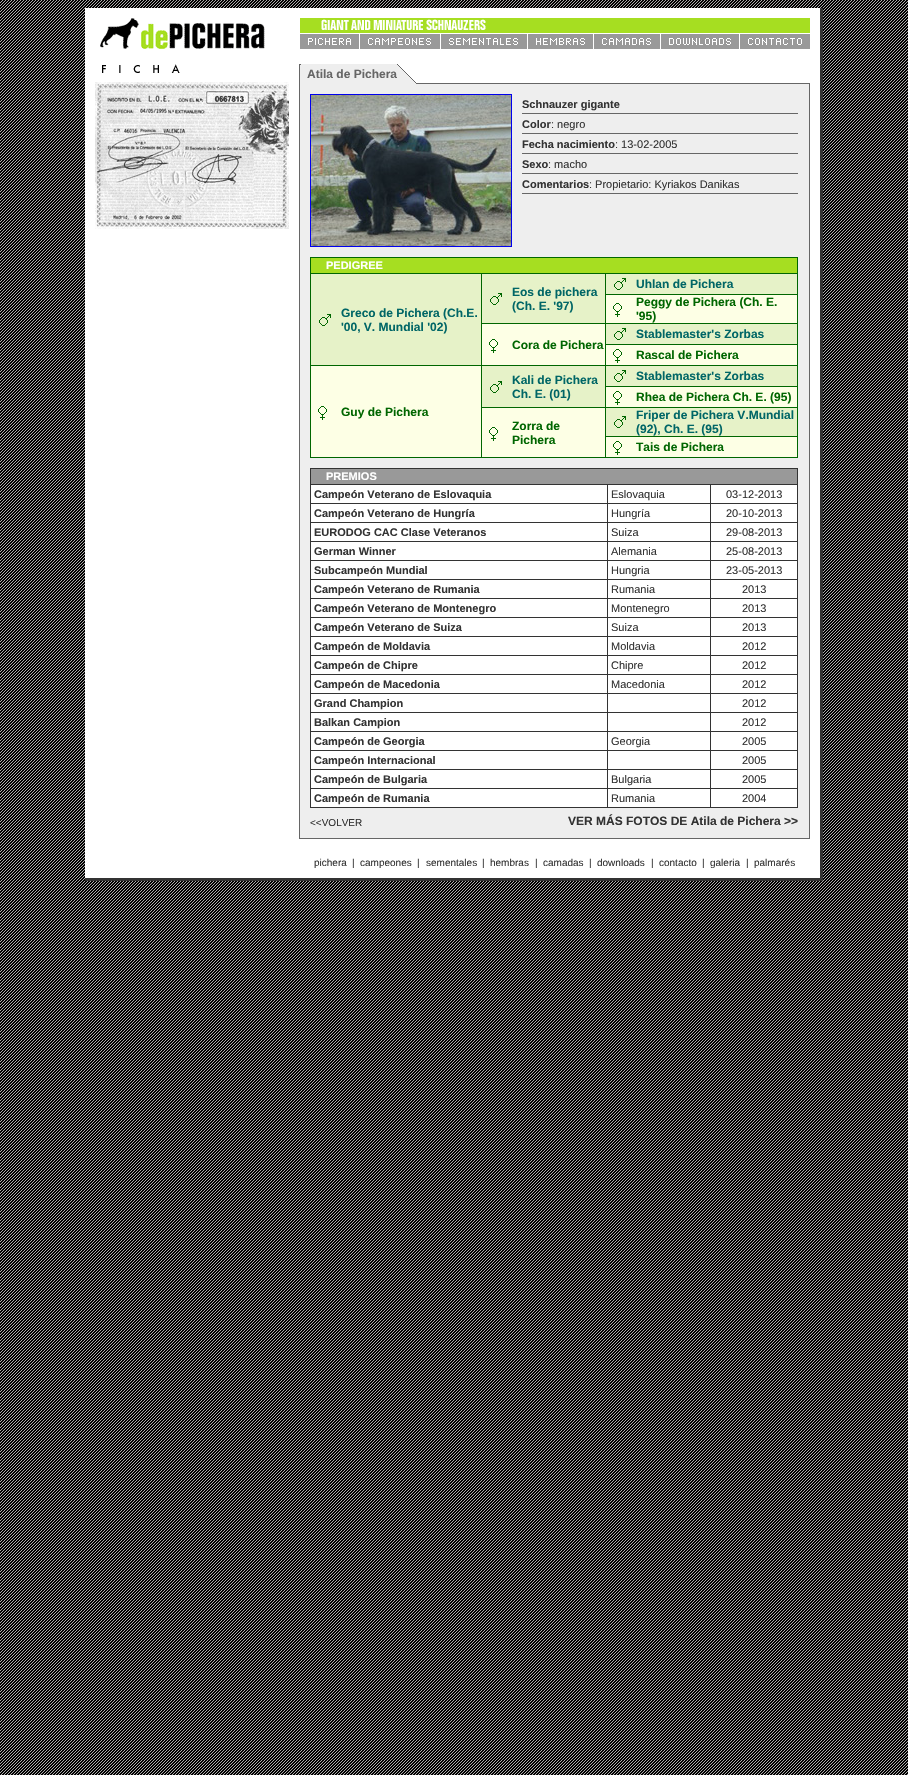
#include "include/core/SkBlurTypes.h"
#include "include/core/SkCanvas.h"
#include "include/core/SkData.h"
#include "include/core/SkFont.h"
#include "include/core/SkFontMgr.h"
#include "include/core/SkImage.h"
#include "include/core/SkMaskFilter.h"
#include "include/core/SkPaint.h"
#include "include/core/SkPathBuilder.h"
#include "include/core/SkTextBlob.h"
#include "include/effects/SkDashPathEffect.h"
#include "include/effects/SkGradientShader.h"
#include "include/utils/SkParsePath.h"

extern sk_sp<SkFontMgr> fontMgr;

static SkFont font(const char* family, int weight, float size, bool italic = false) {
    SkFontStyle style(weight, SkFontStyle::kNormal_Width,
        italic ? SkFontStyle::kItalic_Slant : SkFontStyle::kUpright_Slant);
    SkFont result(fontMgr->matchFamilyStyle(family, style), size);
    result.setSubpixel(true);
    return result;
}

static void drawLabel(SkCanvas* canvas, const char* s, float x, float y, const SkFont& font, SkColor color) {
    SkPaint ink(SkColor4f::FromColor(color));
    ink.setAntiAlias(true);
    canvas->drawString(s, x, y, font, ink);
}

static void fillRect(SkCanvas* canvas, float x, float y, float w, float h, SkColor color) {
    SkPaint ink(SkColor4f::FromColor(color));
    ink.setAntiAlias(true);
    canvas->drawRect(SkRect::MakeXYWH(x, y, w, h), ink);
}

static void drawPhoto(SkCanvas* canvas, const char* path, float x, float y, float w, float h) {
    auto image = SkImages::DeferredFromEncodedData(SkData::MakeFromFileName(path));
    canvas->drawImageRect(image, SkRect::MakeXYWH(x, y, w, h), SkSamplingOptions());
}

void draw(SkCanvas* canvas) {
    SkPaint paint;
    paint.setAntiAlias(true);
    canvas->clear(0xFFFFFFFF);
    drawPhoto(canvas, "assets/img1.png", 0, 0, 908, 1775);
    fillRect(canvas, 85, 8, 735, 870, 0xFFFFFFFF);
    drawPhoto(canvas, "assets/img2.png", 100, 18, 165, 31);
    fillRect(canvas, 486, 18, 324, 15, 0xFFA6DE21);
    drawPhoto(canvas, "assets/img3.png", 299, 18, 187, 15);
    fillRect(canvas, 351, 34, 459, 15, 0xFF999999);
    drawPhoto(canvas, "assets/img4.png", 299, 34, 52, 15);
    drawPhoto(canvas, "assets/img5.png", 359, 34, 72, 15);
    drawPhoto(canvas, "assets/img6.png", 440, 34, 78, 15);
    drawPhoto(canvas, "assets/img7.png", 527, 34, 58, 15);
    drawPhoto(canvas, "assets/img8.png", 593, 34, 58, 15);
    drawPhoto(canvas, "assets/img9.png", 660, 34, 71, 15);
    drawPhoto(canvas, "assets/img10.png", 739, 34, 63, 15);
    drawPhoto(canvas, "assets/img11.png", 102, 64, 78, 9);
    drawPhoto(canvas, "assets/img12.png", 95, 82, 194, 147);
    fillRect(canvas, 416, 83, 394, 1, 0xFF666666);
    fillRect(canvas, 301, 64, 96, 20, 0xFFEEEEEE);
    drawPhoto(canvas, "assets/img13.png", 299, 64, 2, 20);
    SkFont font1 = font("Liberation Sans", 700, 12);
    drawLabel(canvas, "Atila de Pichera", 307, 78, font1, 0xFF666666);
    drawPhoto(canvas, "assets/img14.png", 397, 64, 19, 20);
    fillRect(canvas, 300, 84, 509, 754, 0xFFEEEEEE);
    fillRect(canvas, 809, 84, 1, 755, 0xFF666666);
    fillRect(canvas, 299, 838, 511, 1, 0xFF666666);
    fillRect(canvas, 299, 84, 1, 755, 0xFF666666);
    paint.setStroke(true);
    paint.setStrokeWidth(1);
    paint.setColor(0xFF0000EE);
    canvas->drawRect(SkRect::MakeXYWH(310.5f, 94.5f, 201, 152), paint);
    drawPhoto(canvas, "assets/img15.png", 311, 95, 200, 151);
    fillRect(canvas, 522, 113, 276, 1, 0xFF666666);
    SkFont font2 = font("Liberation Sans", 700, 11);
    drawLabel(canvas, "Schnauzer gigante", 522, 108, font2, 0xFF333333);
    fillRect(canvas, 522, 133, 276, 1, 0xFF666666);
    drawLabel(canvas, "Color", 522, 128, font2, 0xFF333333);
    SkFont font3 = font("Liberation Sans", 400, 11);
    drawLabel(canvas, ": negro", 551, 128, font3, 0xFF333333);
    fillRect(canvas, 522, 153, 276, 1, 0xFF666666);
    drawLabel(canvas, "Fecha nacimiento", 522, 148, font2, 0xFF333333);
    drawLabel(canvas, ": 13-02-2005", 615, 148, font3, 0xFF333333);
    fillRect(canvas, 522, 173, 276, 1, 0xFF666666);
    drawLabel(canvas, "Sexo", 522, 168, font2, 0xFF333333);
    drawLabel(canvas, ": macho", 548, 168, font3, 0xFF333333);
    fillRect(canvas, 522, 193, 276, 1, 0xFF666666);
    drawLabel(canvas, "Comentarios", 522, 188, font2, 0xFF333333);
    drawLabel(canvas, ": Propietario: Kyriakos Danikas", 589, 188, font3, 0xFF333333);
    fillRect(canvas, 311, 258, 486, 15, 0xFFA6DE21);
    fillRect(canvas, 310, 257, 488, 1, 0xFF006600);
    fillRect(canvas, 797, 257, 1, 16, 0xFF006600);
    fillRect(canvas, 310, 257, 1, 16, 0xFF006600);
    drawLabel(canvas, "PEDIGREE", 326, 269, font2, 0xFFFFFFFF);
    fillRect(canvas, 310, 273, 488, 185, 0xFF006600);
    fillRect(canvas, 606, 274, 191, 20, 0xFFE6F2C8);
    drawPhoto(canvas, "assets/img16.png", 614, 278, 12, 12);
    drawLabel(canvas, "Uhlan de Pichera", 636, 288, font1, 0xFF006666);
    fillRect(canvas, 482, 274, 123, 49, 0xFFE6F2C8);
    drawPhoto(canvas, "assets/img16.png", 490, 293, 12, 12);
    drawLabel(canvas, "Eos de pichera", 512, 296, font1, 0xFF006666);
    drawLabel(canvas, "(Ch. E. '97)", 512, 310, font1, 0xFF006666);
    fillRect(canvas, 311, 274, 170, 91, 0xFFE6F2C8);
    drawPhoto(canvas, "assets/img16.png", 319, 314, 12, 12);
    drawLabel(canvas, "Greco de Pichera (Ch.E.", 341, 317, font1, 0xFF006666);
    drawLabel(canvas, "'00, V. Mundial '02)", 341, 331, font1, 0xFF006666);
    fillRect(canvas, 606, 295, 191, 28, 0xFFFDFFE5);
    drawPhoto(canvas, "assets/img17.png", 613, 303, 9, 14);
    drawLabel(canvas, "Peggy de Pichera (Ch. E.", 636, 306, font1, 0xFF006600);
    drawLabel(canvas, "'95)", 636, 320, font1, 0xFF006600);
    fillRect(canvas, 606, 324, 191, 20, 0xFFE6F2C8);
    drawPhoto(canvas, "assets/img16.png", 614, 328, 12, 12);
    drawLabel(canvas, "Stablemaster's Zorbas", 636, 338, font1, 0xFF006666);
    fillRect(canvas, 482, 324, 123, 41, 0xFFFDFFE5);
    drawPhoto(canvas, "assets/img17.png", 489, 339, 9, 14);
    drawLabel(canvas, "Cora de Pichera", 512, 349, font1, 0xFF006600);
    fillRect(canvas, 606, 345, 191, 20, 0xFFFDFFE5);
    drawPhoto(canvas, "assets/img17.png", 613, 349, 9, 14);
    drawLabel(canvas, "Rascal de Pichera", 636, 359, font1, 0xFF006600);
    fillRect(canvas, 482, 366, 123, 41, 0xFFE6F2C8);
    drawPhoto(canvas, "assets/img16.png", 490, 381, 12, 12);
    drawLabel(canvas, "Kali de Pichera", 512, 384, font1, 0xFF006666);
    drawLabel(canvas, "Ch. E. (01)", 512, 398, font1, 0xFF006666);
    fillRect(canvas, 606, 366, 191, 20, 0xFFE6F2C8);
    drawPhoto(canvas, "assets/img16.png", 614, 370, 12, 12);
    drawLabel(canvas, "Stablemaster's Zorbas", 636, 380, font1, 0xFF006666);
    fillRect(canvas, 311, 366, 170, 91, 0xFFFDFFE5);
    drawPhoto(canvas, "assets/img17.png", 318, 406, 9, 14);
    drawLabel(canvas, "Guy de Pichera", 341, 416, font1, 0xFF006600);
    fillRect(canvas, 606, 387, 191, 20, 0xFFFDFFE5);
    drawPhoto(canvas, "assets/img17.png", 613, 391, 9, 14);
    drawLabel(canvas, "Rhea de Pichera Ch. E. (95)", 636, 401, font1, 0xFF006600);
    fillRect(canvas, 482, 408, 123, 49, 0xFFFDFFE5);
    drawPhoto(canvas, "assets/img17.png", 489, 427, 9, 14);
    drawLabel(canvas, "Zorra de", 512, 430, font1, 0xFF006600);
    drawLabel(canvas, "Pichera", 512, 444, font1, 0xFF006600);
    fillRect(canvas, 606, 408, 191, 28, 0xFFE6F2C8);
    drawPhoto(canvas, "assets/img16.png", 614, 416, 12, 12);
    drawLabel(canvas, "Friper de Pichera V.Mundial", 636, 419, font1, 0xFF006666);
    drawLabel(canvas, "(92), Ch. E. (95)", 636, 433, font1, 0xFF006666);
    fillRect(canvas, 606, 437, 191, 20, 0xFFFDFFE5);
    drawPhoto(canvas, "assets/img17.png", 613, 441, 9, 14);
    drawLabel(canvas, "Tais de Pichera", 636, 451, font1, 0xFF006600);
    fillRect(canvas, 310, 468, 488, 1, 0xFF333333);
    fillRect(canvas, 797, 468, 1, 16, 0xFF333333);
    fillRect(canvas, 310, 468, 1, 16, 0xFF333333);
    fillRect(canvas, 311, 469, 486, 15, 0xFF999999);
    drawLabel(canvas, "PREMIOS", 326, 480, font2, 0xFFFFFFFF);
    fillRect(canvas, 310, 484, 488, 324, 0xFF333333);
    fillRect(canvas, 311, 485, 296, 18, 0xFFFFFFFF);
    drawLabel(canvas, "Campeón Veterano de Eslovaquia", 314, 498, font2, 0xFF333333);
    fillRect(canvas, 608, 485, 102, 18, 0xFFFFFFFF);
    drawLabel(canvas, "Eslovaquia", 611, 498, font3, 0xFF333333);
    fillRect(canvas, 711, 485, 86, 18, 0xFFFFFFFF);
    drawLabel(canvas, "03-12-2013", 726, 498, font3, 0xFF333333);
    fillRect(canvas, 311, 504, 296, 18, 0xFFFFFFFF);
    drawLabel(canvas, "Campeón Veterano de Hungría", 314, 517, font2, 0xFF333333);
    fillRect(canvas, 608, 504, 102, 18, 0xFFFFFFFF);
    drawLabel(canvas, "Hungría", 611, 517, font3, 0xFF333333);
    fillRect(canvas, 711, 504, 86, 18, 0xFFFFFFFF);
    drawLabel(canvas, "20-10-2013", 726, 517, font3, 0xFF333333);
    fillRect(canvas, 311, 523, 296, 18, 0xFFFFFFFF);
    drawLabel(canvas, "EURODOG CAC Clase Veteranos", 314, 536, font2, 0xFF333333);
    fillRect(canvas, 608, 523, 102, 18, 0xFFFFFFFF);
    drawLabel(canvas, "Suiza", 611, 536, font3, 0xFF333333);
    fillRect(canvas, 711, 523, 86, 18, 0xFFFFFFFF);
    drawLabel(canvas, "29-08-2013", 726, 536, font3, 0xFF333333);
    fillRect(canvas, 311, 542, 296, 18, 0xFFFFFFFF);
    drawLabel(canvas, "German Winner", 314, 555, font2, 0xFF333333);
    fillRect(canvas, 608, 542, 102, 18, 0xFFFFFFFF);
    drawLabel(canvas, "Alemania", 611, 555, font3, 0xFF333333);
    fillRect(canvas, 711, 542, 86, 18, 0xFFFFFFFF);
    drawLabel(canvas, "25-08-2013", 726, 555, font3, 0xFF333333);
    fillRect(canvas, 311, 561, 296, 18, 0xFFFFFFFF);
    drawLabel(canvas, "Subcampeón Mundial", 314, 574, font2, 0xFF333333);
    fillRect(canvas, 608, 561, 102, 18, 0xFFFFFFFF);
    drawLabel(canvas, "Hungria", 611, 574, font3, 0xFF333333);
    fillRect(canvas, 711, 561, 86, 18, 0xFFFFFFFF);
    drawLabel(canvas, "23-05-2013", 726, 574, font3, 0xFF333333);
    fillRect(canvas, 311, 580, 296, 18, 0xFFFFFFFF);
    drawLabel(canvas, "Campeón Veterano de Rumania", 314, 593, font2, 0xFF333333);
    fillRect(canvas, 608, 580, 102, 18, 0xFFFFFFFF);
    drawLabel(canvas, "Rumania", 611, 593, font3, 0xFF333333);
    fillRect(canvas, 711, 580, 86, 18, 0xFFFFFFFF);
    drawLabel(canvas, "2013", 742, 593, font3, 0xFF333333);
    fillRect(canvas, 311, 599, 296, 18, 0xFFFFFFFF);
    drawLabel(canvas, "Campeón Veterano de Montenegro", 314, 612, font2, 0xFF333333);
    fillRect(canvas, 608, 599, 102, 18, 0xFFFFFFFF);
    drawLabel(canvas, "Montenegro", 611, 612, font3, 0xFF333333);
    fillRect(canvas, 711, 599, 86, 18, 0xFFFFFFFF);
    drawLabel(canvas, "2013", 742, 612, font3, 0xFF333333);
    fillRect(canvas, 311, 618, 296, 18, 0xFFFFFFFF);
    drawLabel(canvas, "Campeón Veterano de Suiza", 314, 631, font2, 0xFF333333);
    fillRect(canvas, 608, 618, 102, 18, 0xFFFFFFFF);
    drawLabel(canvas, "Suiza", 611, 631, font3, 0xFF333333);
    fillRect(canvas, 711, 618, 86, 18, 0xFFFFFFFF);
    drawLabel(canvas, "2013", 742, 631, font3, 0xFF333333);
    fillRect(canvas, 311, 637, 296, 18, 0xFFFFFFFF);
    drawLabel(canvas, "Campeón de Moldavia", 314, 650, font2, 0xFF333333);
    fillRect(canvas, 608, 637, 102, 18, 0xFFFFFFFF);
    drawLabel(canvas, "Moldavia", 611, 650, font3, 0xFF333333);
    fillRect(canvas, 711, 637, 86, 18, 0xFFFFFFFF);
    drawLabel(canvas, "2012", 742, 650, font3, 0xFF333333);
    fillRect(canvas, 311, 656, 296, 18, 0xFFFFFFFF);
    drawLabel(canvas, "Campeón de Chipre", 314, 669, font2, 0xFF333333);
    fillRect(canvas, 608, 656, 102, 18, 0xFFFFFFFF);
    drawLabel(canvas, "Chipre", 611, 669, font3, 0xFF333333);
    fillRect(canvas, 711, 656, 86, 18, 0xFFFFFFFF);
    drawLabel(canvas, "2012", 742, 669, font3, 0xFF333333);
    fillRect(canvas, 311, 675, 296, 18, 0xFFFFFFFF);
    drawLabel(canvas, "Campeón de Macedonia", 314, 688, font2, 0xFF333333);
    fillRect(canvas, 608, 675, 102, 18, 0xFFFFFFFF);
    drawLabel(canvas, "Macedonia", 611, 688, font3, 0xFF333333);
    fillRect(canvas, 711, 675, 86, 18, 0xFFFFFFFF);
    drawLabel(canvas, "2012", 742, 688, font3, 0xFF333333);
    fillRect(canvas, 311, 694, 296, 18, 0xFFFFFFFF);
    drawLabel(canvas, "Grand Champion", 314, 707, font2, 0xFF333333);
    fillRect(canvas, 608, 694, 102, 18, 0xFFFFFFFF);
    fillRect(canvas, 711, 694, 86, 18, 0xFFFFFFFF);
    drawLabel(canvas, "2012", 742, 707, font3, 0xFF333333);
    fillRect(canvas, 311, 713, 296, 18, 0xFFFFFFFF);
    drawLabel(canvas, "Balkan Campion", 314, 726, font2, 0xFF333333);
    fillRect(canvas, 608, 713, 102, 18, 0xFFFFFFFF);
    fillRect(canvas, 711, 713, 86, 18, 0xFFFFFFFF);
    drawLabel(canvas, "2012", 742, 726, font3, 0xFF333333);
    fillRect(canvas, 311, 732, 296, 18, 0xFFFFFFFF);
    drawLabel(canvas, "Campeón de Georgia", 314, 745, font2, 0xFF333333);
    fillRect(canvas, 608, 732, 102, 18, 0xFFFFFFFF);
    drawLabel(canvas, "Georgia", 611, 745, font3, 0xFF333333);
    fillRect(canvas, 711, 732, 86, 18, 0xFFFFFFFF);
    drawLabel(canvas, "2005", 742, 745, font3, 0xFF333333);
    fillRect(canvas, 311, 751, 296, 18, 0xFFFFFFFF);
    drawLabel(canvas, "Campeón Internacional", 314, 764, font2, 0xFF333333);
    fillRect(canvas, 608, 751, 102, 18, 0xFFFFFFFF);
    fillRect(canvas, 711, 751, 86, 18, 0xFFFFFFFF);
    drawLabel(canvas, "2005", 742, 764, font3, 0xFF333333);
    fillRect(canvas, 311, 770, 296, 18, 0xFFFFFFFF);
    drawLabel(canvas, "Campeón de Bulgaria", 314, 783, font2, 0xFF333333);
    fillRect(canvas, 608, 770, 102, 18, 0xFFFFFFFF);
    drawLabel(canvas, "Bulgaria", 611, 783, font3, 0xFF333333);
    fillRect(canvas, 711, 770, 86, 18, 0xFFFFFFFF);
    drawLabel(canvas, "2005", 742, 783, font3, 0xFF333333);
    fillRect(canvas, 311, 789, 296, 18, 0xFFFFFFFF);
    drawLabel(canvas, "Campeón de Rumania", 314, 802, font2, 0xFF333333);
    fillRect(canvas, 608, 789, 102, 18, 0xFFFFFFFF);
    drawLabel(canvas, "Rumania", 611, 802, font3, 0xFF333333);
    fillRect(canvas, 711, 789, 86, 18, 0xFFFFFFFF);
    drawLabel(canvas, "2004", 742, 802, font3, 0xFF333333);
    SkFont font4 = font("Liberation Sans", 400, 10);
    drawLabel(canvas, "<<VOLVER", 310, 826, font4, 0xFF333333);
    drawLabel(canvas, "VER MÁS FOTOS DE Atila de Pichera >>", 568, 825, font1, 0xFF333333);
    drawLabel(canvas, "pichera", 314, 866, font4, 0xFF333333);
    drawLabel(canvas, "|", 352, 866, font4, 0xFF333333);
    drawLabel(canvas, "campeones", 360, 866, font4, 0xFF333333);
    drawLabel(canvas, "|", 417, 866, font4, 0xFF333333);
    drawLabel(canvas, "sementales", 426, 866, font4, 0xFF333333);
    drawLabel(canvas, "|", 482, 866, font4, 0xFF333333);
    drawLabel(canvas, "hembras", 490, 866, font4, 0xFF333333);
    drawLabel(canvas, "|", 535, 866, font4, 0xFF333333);
    drawLabel(canvas, "camadas", 543, 866, font4, 0xFF333333);
    drawLabel(canvas, "|", 589, 866, font4, 0xFF333333);
    drawLabel(canvas, "downloads", 597, 866, font4, 0xFF333333);
    drawLabel(canvas, "|", 651, 866, font4, 0xFF333333);
    drawLabel(canvas, "contacto", 659, 866, font4, 0xFF333333);
    drawLabel(canvas, "|", 702, 866, font4, 0xFF333333);
    drawLabel(canvas, "galeria", 710, 866, font4, 0xFF333333);
    drawLabel(canvas, "|", 746, 866, font4, 0xFF333333);
    drawLabel(canvas, "palmarés", 754, 866, font4, 0xFF333333);
    fillRect(canvas, 820, 8, 3, 870, 0xFF333333);
    fillRect(canvas, 85, 878, 738, 3, 0xFF333333);
}
